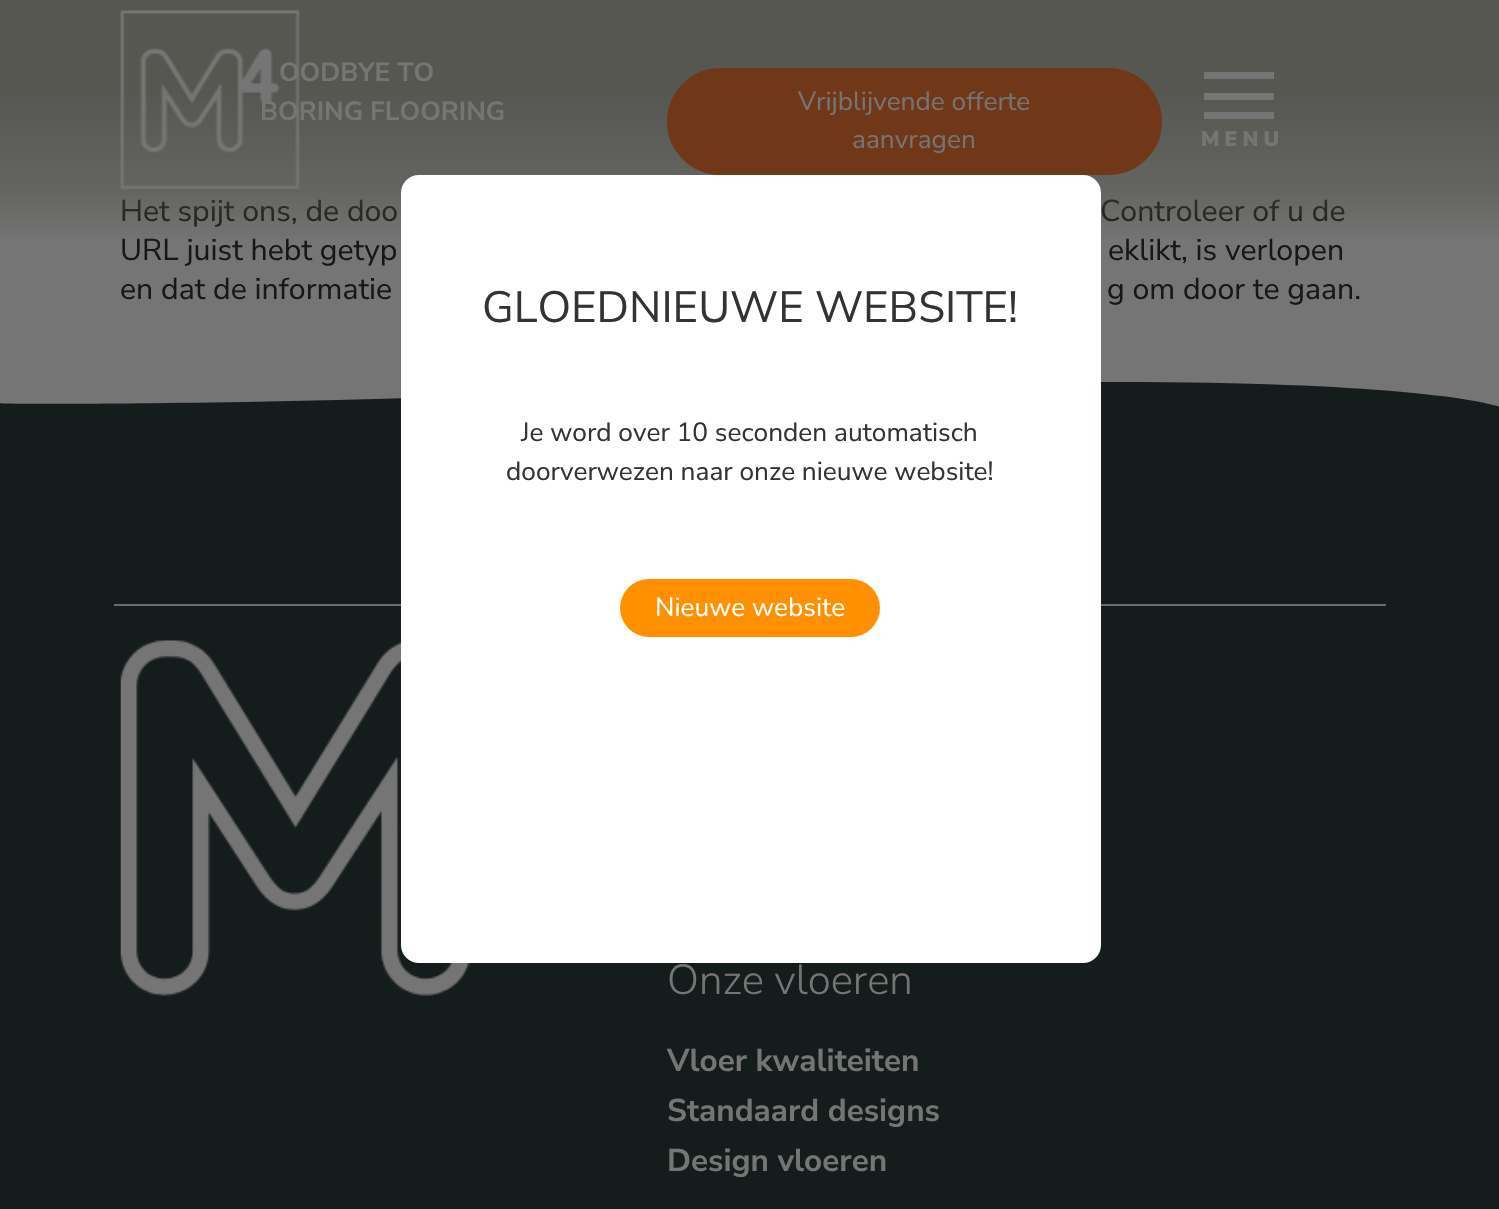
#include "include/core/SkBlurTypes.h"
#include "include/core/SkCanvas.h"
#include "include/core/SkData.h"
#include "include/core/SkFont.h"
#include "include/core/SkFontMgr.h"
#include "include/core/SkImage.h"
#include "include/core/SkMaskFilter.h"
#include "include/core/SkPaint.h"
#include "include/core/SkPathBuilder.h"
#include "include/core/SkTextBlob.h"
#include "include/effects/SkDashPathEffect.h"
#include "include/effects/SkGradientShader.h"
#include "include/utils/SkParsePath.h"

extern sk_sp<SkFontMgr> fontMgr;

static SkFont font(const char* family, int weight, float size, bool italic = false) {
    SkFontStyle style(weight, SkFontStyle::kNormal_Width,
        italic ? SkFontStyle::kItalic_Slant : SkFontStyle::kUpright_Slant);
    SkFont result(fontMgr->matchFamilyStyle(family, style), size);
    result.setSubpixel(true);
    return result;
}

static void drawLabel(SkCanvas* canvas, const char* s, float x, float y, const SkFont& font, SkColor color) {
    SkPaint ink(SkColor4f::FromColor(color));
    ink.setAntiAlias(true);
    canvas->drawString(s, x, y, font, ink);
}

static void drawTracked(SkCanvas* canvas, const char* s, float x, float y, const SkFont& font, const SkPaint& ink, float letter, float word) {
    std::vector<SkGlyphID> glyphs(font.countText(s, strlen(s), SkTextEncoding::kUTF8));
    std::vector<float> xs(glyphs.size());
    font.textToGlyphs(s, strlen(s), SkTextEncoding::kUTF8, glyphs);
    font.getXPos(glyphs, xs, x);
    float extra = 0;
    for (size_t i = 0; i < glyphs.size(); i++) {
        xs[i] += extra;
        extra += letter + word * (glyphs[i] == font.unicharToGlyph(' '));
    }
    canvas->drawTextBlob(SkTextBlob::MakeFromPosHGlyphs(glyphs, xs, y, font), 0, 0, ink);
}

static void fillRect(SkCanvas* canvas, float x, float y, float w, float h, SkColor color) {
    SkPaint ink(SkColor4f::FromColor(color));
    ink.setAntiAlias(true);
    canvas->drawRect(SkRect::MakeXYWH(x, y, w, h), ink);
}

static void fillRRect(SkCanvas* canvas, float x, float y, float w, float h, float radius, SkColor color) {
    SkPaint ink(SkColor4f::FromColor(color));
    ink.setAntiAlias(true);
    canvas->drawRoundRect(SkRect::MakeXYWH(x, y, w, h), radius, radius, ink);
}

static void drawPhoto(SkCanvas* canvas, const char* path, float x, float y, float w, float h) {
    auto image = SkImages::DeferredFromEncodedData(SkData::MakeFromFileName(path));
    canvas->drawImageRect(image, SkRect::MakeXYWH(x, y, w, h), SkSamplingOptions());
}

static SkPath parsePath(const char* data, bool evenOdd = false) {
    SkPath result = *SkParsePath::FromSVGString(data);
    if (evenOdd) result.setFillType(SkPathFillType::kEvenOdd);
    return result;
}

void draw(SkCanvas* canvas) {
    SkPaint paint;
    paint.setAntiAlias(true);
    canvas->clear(0xFF757575);
    SkFont font1 = font("Nunito Sans", 400, 30.25f);
    drawLabel(canvas, "Het spijt ons, de doo", 120, 221, font1, 0xFF171717);
    drawLabel(canvas, "Controleer of u de", 1100, 221, font1, 0xFF171717);
    drawLabel(canvas, "URL juist hebt getyp", 120, 260, font1, 0xFF171717);
    drawLabel(canvas, "eklikt, is verlopen", 1108, 260, font1, 0xFF171717);
    {
        const SkColor colors[] = {0xE652534D, 0x8052534D, 0x0052534D};
        const float stops[] = {0.37f, 0.77f, 1};
        const SkPoint ends[] = {{750, 0}, {750, 245}};
        paint.setShader(SkGradientShader::MakeLinear(ends, colors, stops, 3, SkTileMode::kClamp));
        paint.setAlpha(255);
    }
    canvas->drawRect(SkRect::MakeXYWH(0, 0, 1499, 240), paint);
    SkFont font2 = font("Nunito Sans", 700, 26.25f);
    drawLabel(canvas, "OODBYE TO", 279, 81, font2, 0xFF757575);
    drawLabel(canvas, "BORING FLOORING", 260, 120, font2, 0xFF757575);
    drawPhoto(canvas, "assets/img1.png", 120, 10, 180, 180);
    paint.setShader(nullptr);
    paint.setColor(0xFF713719);
    canvas->drawRoundRect(SkRect::MakeXYWH(668, 69, 493, 105), 52.5f, 52.5f, paint);
    paint.setStroke(true);
    paint.setStrokeWidth(2);
    canvas->drawRoundRect(SkRect::MakeXYWH(668, 69, 493, 105), 52.5f, 52.5f, paint);
    SkFont font3 = font("Nunito Sans", 400, 26.25f);
    drawLabel(canvas, "Vrijblijvende offerte", 798, 110, font3, 0xFF757575);
    drawLabel(canvas, "aanvragen", 852, 148, font3, 0xFF757575);
    fillRect(canvas, 1204, 72, 70, 7, 0xFF757575);
    fillRect(canvas, 1204, 93, 70, 7, 0xFF757575);
    fillRect(canvas, 1204, 112, 70, 7, 0xFF757575);
    SkFont font4 = font("Nunito Sans", 900, 21);
    paint.setStroke(false);
    paint.setColor(0xFF757575);
    drawTracked(canvas, "MENU", 1201, 146, font4, paint, 5, 0);
    drawLabel(canvas, "en dat de informatie", 120, 299, font1, 0xFF171717);
    drawLabel(canvas, "g om door te gaan.", 1107, 299, font1, 0xFF171717);
    canvas->save();
    canvas->clipRect(SkRect::MakeXYWH(0, 382, 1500, 40));
    paint.setColor(0xFF151D1C);
    canvas->drawPath(parsePath("M-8 402C-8 402-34 406 244 402C521 397 827 380 1143 382C1459 384 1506 409 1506 409V429L-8 430Z"), paint);
    canvas->restore();
    fillRect(canvas, 0, 422, 1499, 787, 0xFF151D1C);
    fillRect(canvas, 114, 604, 1272, 2, 0xFF6A6B6B);
    drawPhoto(canvas, "assets/img2.png", 120, 640, 350, 356);
    fillRRect(canvas, 401, 175, 700, 788, 18, 0xFFFFFFFF);
    SkFont font5 = font("Nunito Sans", 400, 43.75f);
    drawLabel(canvas, "GLOEDNIEUWE WEBSITE!", 482, 322, font5, 0xFF333333);
    drawLabel(canvas, "Je word over 10 seconden automatisch", 521, 441, font3, 0xFF333333);
    drawLabel(canvas, "doorverwezen naar onze nieuwe website!", 506, 480, font3, 0xFF333333);
    fillRRect(canvas, 620, 579, 260, 58, 29, 0xFFFF9000);
    drawLabel(canvas, "Nieuwe website", 655, 616, font3, 0xFFFFFFFF);
    SkFont font6 = font("Nunito Sans", 300, 42);
    drawLabel(canvas, "Onze vloeren", 667, 994, font6, 0xFF757575);
    SkFont font7 = font("Nunito Sans", 700, 31.5f);
    drawLabel(canvas, "Vloer kwaliteiten", 667, 1071, font7, 0xFF757575);
    drawLabel(canvas, "Standaard designs", 667, 1121, font7, 0xFF757575);
    drawLabel(canvas, "Design vloeren", 667, 1171, font7, 0xFF757575);
}
